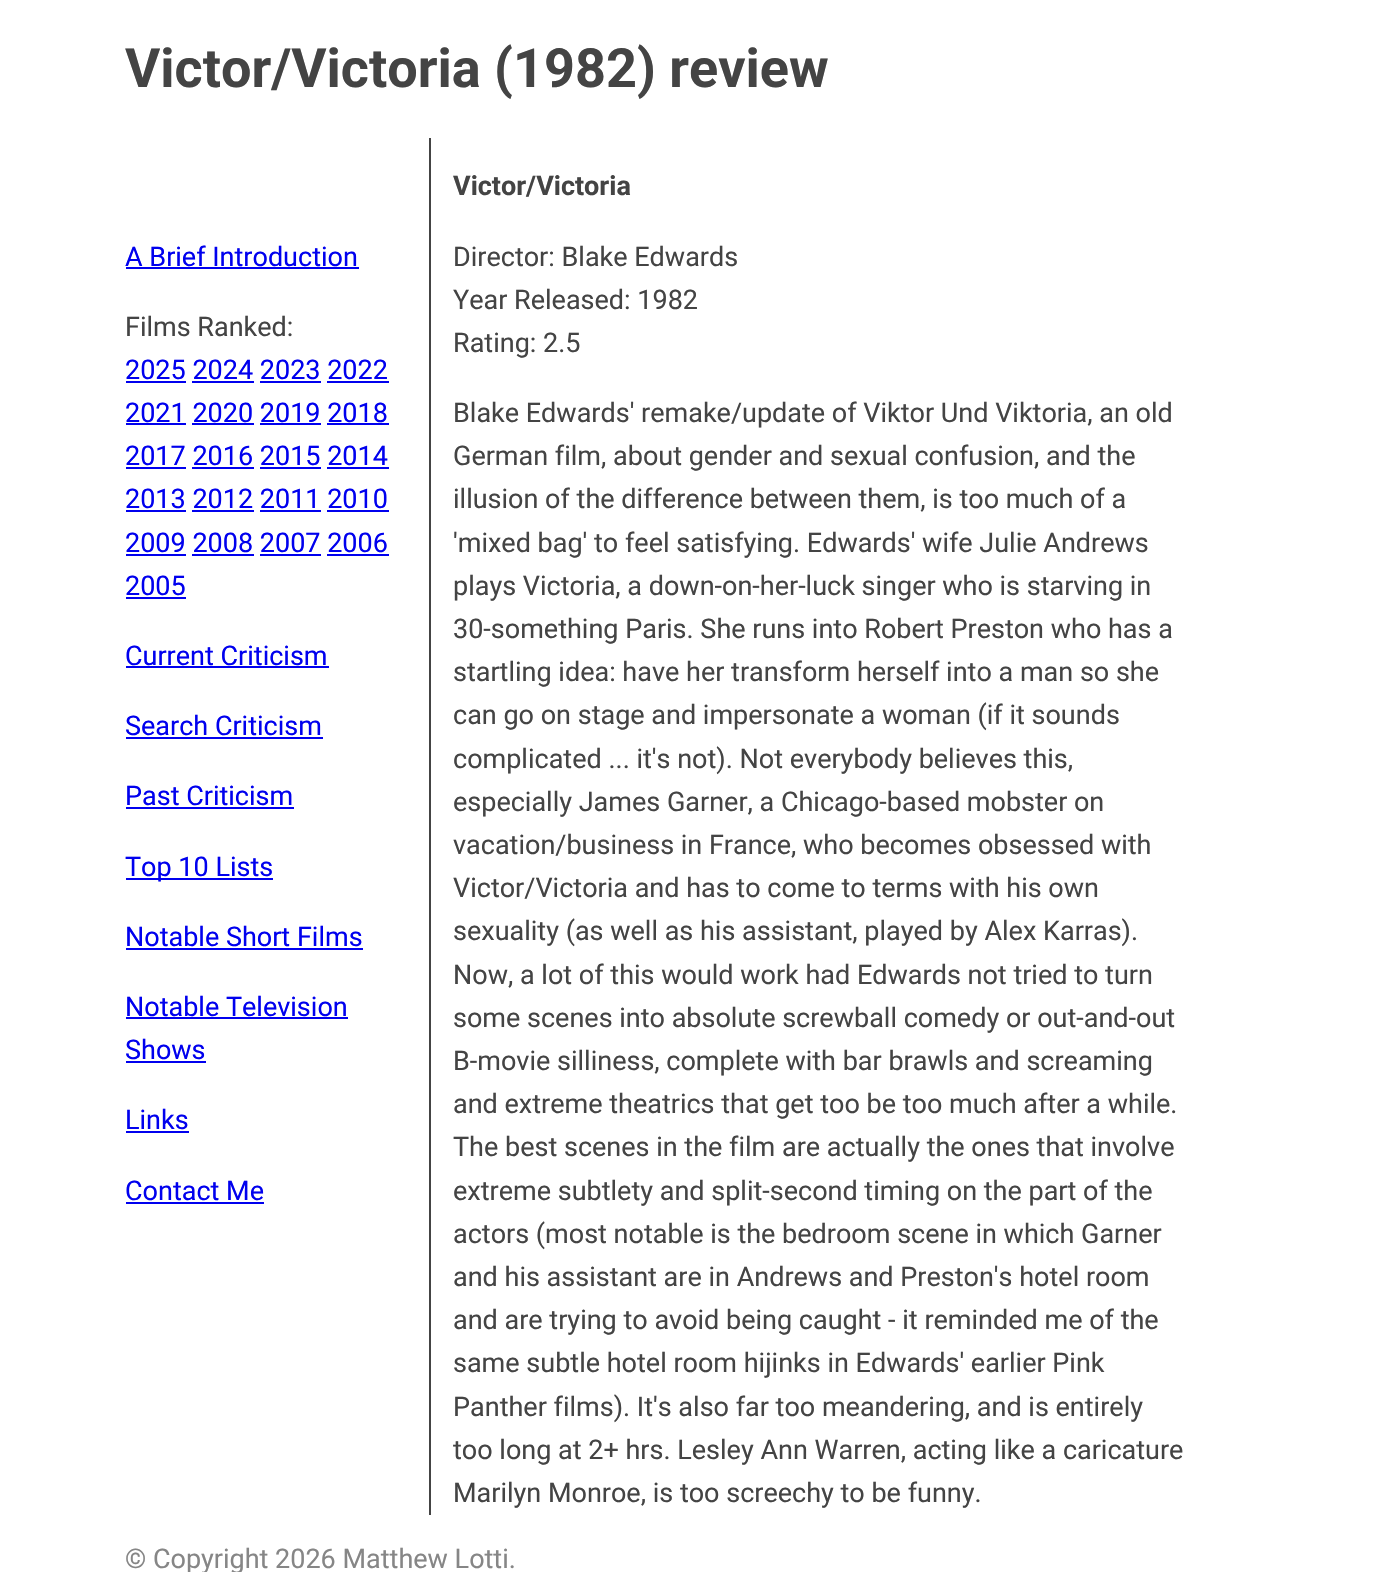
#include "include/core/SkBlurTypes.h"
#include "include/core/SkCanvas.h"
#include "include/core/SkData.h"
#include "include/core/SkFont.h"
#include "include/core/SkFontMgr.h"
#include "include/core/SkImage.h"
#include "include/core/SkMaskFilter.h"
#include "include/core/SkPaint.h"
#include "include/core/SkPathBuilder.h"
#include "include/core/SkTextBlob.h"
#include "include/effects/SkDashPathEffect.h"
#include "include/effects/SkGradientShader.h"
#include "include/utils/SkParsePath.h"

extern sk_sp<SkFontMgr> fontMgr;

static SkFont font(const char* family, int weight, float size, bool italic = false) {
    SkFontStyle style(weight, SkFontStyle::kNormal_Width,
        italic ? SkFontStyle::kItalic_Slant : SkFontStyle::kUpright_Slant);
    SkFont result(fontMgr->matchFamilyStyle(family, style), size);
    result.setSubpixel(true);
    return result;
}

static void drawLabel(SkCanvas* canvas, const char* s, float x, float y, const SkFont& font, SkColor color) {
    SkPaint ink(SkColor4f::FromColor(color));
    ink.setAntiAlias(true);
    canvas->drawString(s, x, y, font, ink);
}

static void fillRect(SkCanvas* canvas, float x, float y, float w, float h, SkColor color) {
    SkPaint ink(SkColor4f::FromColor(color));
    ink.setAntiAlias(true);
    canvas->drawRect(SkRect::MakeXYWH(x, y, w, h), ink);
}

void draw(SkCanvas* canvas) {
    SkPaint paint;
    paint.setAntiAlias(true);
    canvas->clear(0xFFFFFFFF);
    SkFont font1 = font("Roboto", 700, 54);
    drawLabel(canvas, "Victor/Victoria (1982) review", 125, 87, font1, 0xFF444444);
    SkFont font2 = font("Roboto", 400, 27);
    drawLabel(canvas, "A Brief Introduction", 125, 266, font2, 0xFF0000EE);
    fillRect(canvas, 126, 267, 233, 2, 0xFF0000EE);
    drawLabel(canvas, "Films Ranked:", 125, 336, font2, 0xFF444444);
    drawLabel(canvas, "2025 2024 2023 2022", 125, 379, font2, 0xFF0000EE);
    fillRect(canvas, 126, 381, 60, 2, 0xFF0000EE);
    fillRect(canvas, 192, 381, 62, 2, 0xFF0000EE);
    fillRect(canvas, 260, 381, 61, 2, 0xFF0000EE);
    fillRect(canvas, 327, 381, 62, 2, 0xFF0000EE);
    drawLabel(canvas, "2021 2020 2019 2018", 125, 422, font2, 0xFF0000EE);
    fillRect(canvas, 126, 423, 60, 2, 0xFF0000EE);
    fillRect(canvas, 192, 423, 62, 2, 0xFF0000EE);
    fillRect(canvas, 260, 423, 61, 2, 0xFF0000EE);
    fillRect(canvas, 327, 423, 62, 2, 0xFF0000EE);
    drawLabel(canvas, "2017 2016 2015 2014", 125, 465, font2, 0xFF0000EE);
    fillRect(canvas, 126, 467, 60, 2, 0xFF0000EE);
    fillRect(canvas, 192, 467, 62, 2, 0xFF0000EE);
    fillRect(canvas, 260, 467, 61, 2, 0xFF0000EE);
    fillRect(canvas, 327, 467, 62, 2, 0xFF0000EE);
    drawLabel(canvas, "2013 2012 2011 2010", 125, 508, font2, 0xFF0000EE);
    fillRect(canvas, 126, 510, 60, 2, 0xFF0000EE);
    fillRect(canvas, 192, 510, 62, 2, 0xFF0000EE);
    fillRect(canvas, 260, 510, 61, 2, 0xFF0000EE);
    fillRect(canvas, 327, 510, 62, 2, 0xFF0000EE);
    drawLabel(canvas, "2009 2008 2007 2006", 125, 552, font2, 0xFF0000EE);
    fillRect(canvas, 126, 554, 60, 2, 0xFF0000EE);
    fillRect(canvas, 192, 554, 62, 2, 0xFF0000EE);
    fillRect(canvas, 260, 554, 61, 2, 0xFF0000EE);
    fillRect(canvas, 327, 554, 62, 2, 0xFF0000EE);
    drawLabel(canvas, "2005", 125, 595, font2, 0xFF0000EE);
    fillRect(canvas, 126, 597, 60, 2, 0xFF0000EE);
    drawLabel(canvas, "Current Criticism", 125, 665, font2, 0xFF0000EE);
    fillRect(canvas, 126, 666, 203, 2, 0xFF0000EE);
    drawLabel(canvas, "Search Criticism", 125, 735, font2, 0xFF0000EE);
    fillRect(canvas, 126, 737, 197, 2, 0xFF0000EE);
    drawLabel(canvas, "Past Criticism", 125, 805, font2, 0xFF0000EE);
    fillRect(canvas, 126, 807, 168, 2, 0xFF0000EE);
    fillRect(canvas, 126, 878, 147, 2, 0xFF0000EE);
    drawLabel(canvas, "Top 10 Lists", 125, 876, font2, 0xFF0000EE);
    drawLabel(canvas, "Notable Short Films", 125, 946, font2, 0xFF0000EE);
    fillRect(canvas, 126, 948, 237, 2, 0xFF0000EE);
    drawLabel(canvas, "Notable Television", 125, 1016, font2, 0xFF0000EE);
    fillRect(canvas, 126, 1017, 222, 2, 0xFF0000EE);
    drawLabel(canvas, "Shows", 125, 1059, font2, 0xFF0000EE);
    fillRect(canvas, 126, 1061, 80, 2, 0xFF0000EE);
    drawLabel(canvas, "Links", 125, 1129, font2, 0xFF0000EE);
    fillRect(canvas, 126, 1131, 63, 2, 0xFF0000EE);
    drawLabel(canvas, "Contact Me", 125, 1200, font2, 0xFF0000EE);
    fillRect(canvas, 126, 1202, 138, 2, 0xFF0000EE);
    fillRect(canvas, 429, 138, 2, 1377, 0xFF444444);
    SkFont font3 = font("Roboto", 700, 27);
    drawLabel(canvas, "Victor/Victoria", 453, 195, font3, 0xFF444444);
    drawLabel(canvas, "Director: Blake Edwards", 453, 266, font2, 0xFF444444);
    drawLabel(canvas, "Year Released: 1982", 453, 309, font2, 0xFF444444);
    drawLabel(canvas, "Rating: 2.5", 453, 352, font2, 0xFF444444);
    drawLabel(canvas, "Blake Edwards' remake/update of Viktor Und Viktoria, an old", 453, 422, font2, 0xFF444444);
    drawLabel(canvas, "German film, about gender and sexual confusion, and the", 453, 465, font2, 0xFF444444);
    drawLabel(canvas, "illusion of the difference between them, is too much of a", 453, 508, font2, 0xFF444444);
    drawLabel(canvas, "'mixed bag' to feel satisfying. Edwards' wife Julie Andrews", 453, 552, font2, 0xFF444444);
    drawLabel(canvas, "plays Victoria, a down-on-her-luck singer who is starving in", 453, 595, font2, 0xFF444444);
    drawLabel(canvas, "30-something Paris. She runs into Robert Preston who has a", 453, 638, font2, 0xFF444444);
    drawLabel(canvas, "startling idea: have her transform herself into a man so she", 453, 681, font2, 0xFF444444);
    drawLabel(canvas, "can go on stage and impersonate a woman (if it sounds", 453, 724, font2, 0xFF444444);
    drawLabel(canvas, "complicated ... it's not). Not everybody believes this,", 453, 768, font2, 0xFF444444);
    drawLabel(canvas, "especially James Garner, a Chicago-based mobster on", 453, 811, font2, 0xFF444444);
    drawLabel(canvas, "vacation/business in France, who becomes obsessed with", 453, 854, font2, 0xFF444444);
    drawLabel(canvas, "Victor/Victoria and has to come to terms with his own", 453, 897, font2, 0xFF444444);
    drawLabel(canvas, "sexuality (as well as his assistant, played by Alex Karras).", 453, 940, font2, 0xFF444444);
    drawLabel(canvas, "Now, a lot of this would work had Edwards not tried to turn", 453, 984, font2, 0xFF444444);
    drawLabel(canvas, "some scenes into absolute screwball comedy or out-and-out", 453, 1027, font2, 0xFF444444);
    drawLabel(canvas, "B-movie silliness, complete with bar brawls and screaming", 453, 1070, font2, 0xFF444444);
    drawLabel(canvas, "and extreme theatrics that get too be too much after a while.", 453, 1113, font2, 0xFF444444);
    drawLabel(canvas, "The best scenes in the film are actually the ones that involve", 453, 1156, font2, 0xFF444444);
    drawLabel(canvas, "extreme subtlety and split-second timing on the part of the", 453, 1200, font2, 0xFF444444);
    drawLabel(canvas, "actors (most notable is the bedroom scene in which Garner", 453, 1243, font2, 0xFF444444);
    drawLabel(canvas, "and his assistant are in Andrews and Preston's hotel room", 453, 1286, font2, 0xFF444444);
    drawLabel(canvas, "and are trying to avoid being caught - it reminded me of the", 453, 1329, font2, 0xFF444444);
    drawLabel(canvas, "same subtle hotel room hijinks in Edwards' earlier Pink", 453, 1372, font2, 0xFF444444);
    drawLabel(canvas, "Panther films). It's also far too meandering, and is entirely", 453, 1416, font2, 0xFF444444);
    drawLabel(canvas, "too long at 2+ hrs. Lesley Ann Warren, acting like a caricature", 453, 1459, font2, 0xFF444444);
    drawLabel(canvas, "Marilyn Monroe, is too screechy to be funny.", 453, 1502, font2, 0xFF444444);
    drawLabel(canvas, "© Copyright 2026 Matthew Lotti.", 125, 1568, font2, 0xFF868686);
}
